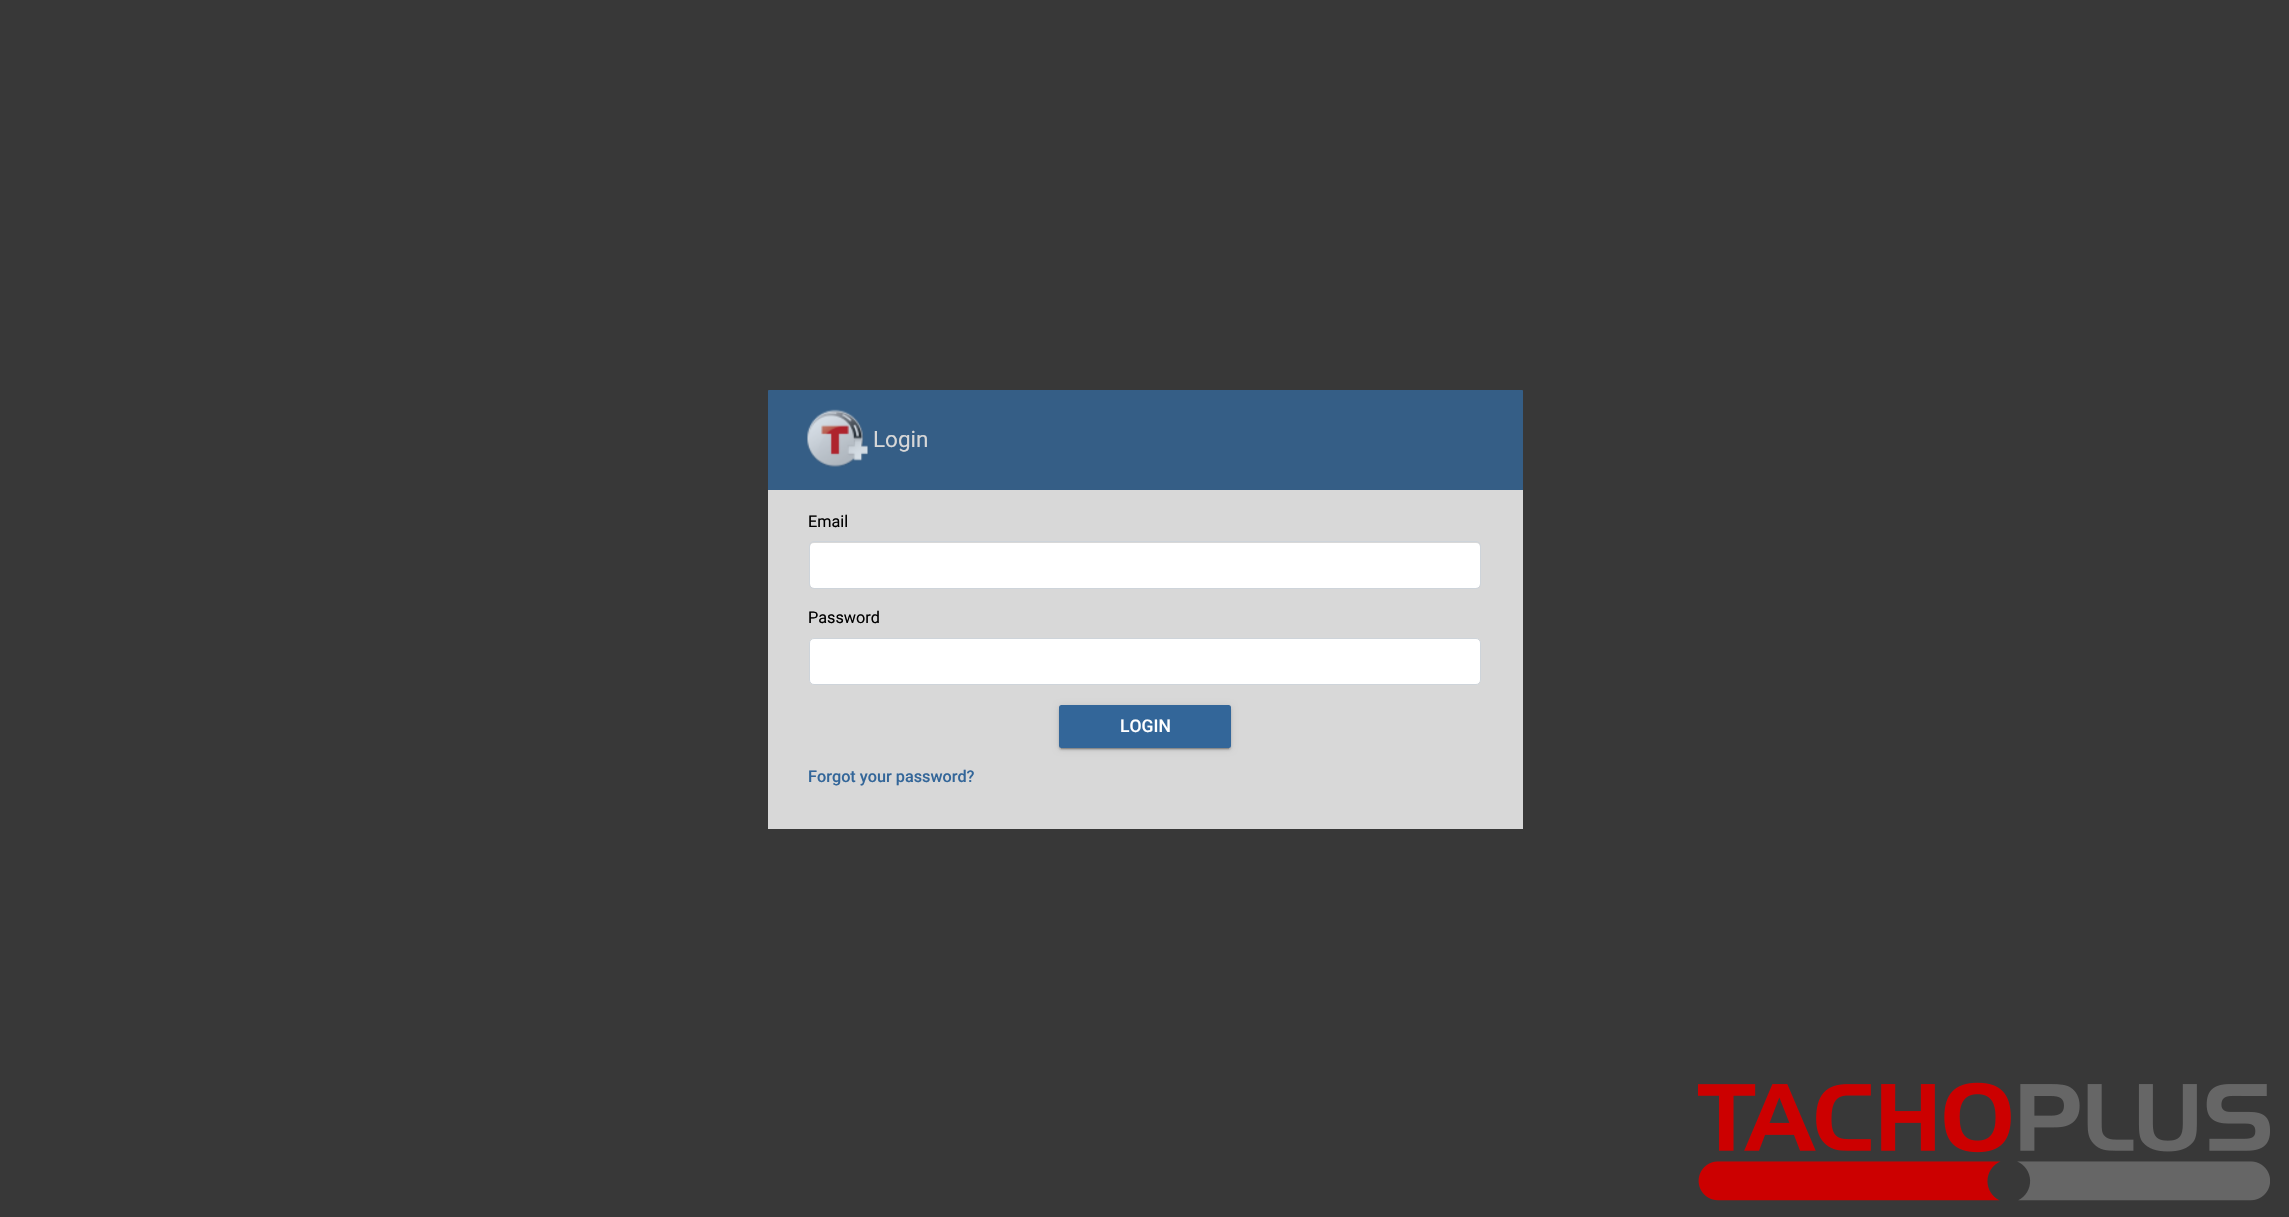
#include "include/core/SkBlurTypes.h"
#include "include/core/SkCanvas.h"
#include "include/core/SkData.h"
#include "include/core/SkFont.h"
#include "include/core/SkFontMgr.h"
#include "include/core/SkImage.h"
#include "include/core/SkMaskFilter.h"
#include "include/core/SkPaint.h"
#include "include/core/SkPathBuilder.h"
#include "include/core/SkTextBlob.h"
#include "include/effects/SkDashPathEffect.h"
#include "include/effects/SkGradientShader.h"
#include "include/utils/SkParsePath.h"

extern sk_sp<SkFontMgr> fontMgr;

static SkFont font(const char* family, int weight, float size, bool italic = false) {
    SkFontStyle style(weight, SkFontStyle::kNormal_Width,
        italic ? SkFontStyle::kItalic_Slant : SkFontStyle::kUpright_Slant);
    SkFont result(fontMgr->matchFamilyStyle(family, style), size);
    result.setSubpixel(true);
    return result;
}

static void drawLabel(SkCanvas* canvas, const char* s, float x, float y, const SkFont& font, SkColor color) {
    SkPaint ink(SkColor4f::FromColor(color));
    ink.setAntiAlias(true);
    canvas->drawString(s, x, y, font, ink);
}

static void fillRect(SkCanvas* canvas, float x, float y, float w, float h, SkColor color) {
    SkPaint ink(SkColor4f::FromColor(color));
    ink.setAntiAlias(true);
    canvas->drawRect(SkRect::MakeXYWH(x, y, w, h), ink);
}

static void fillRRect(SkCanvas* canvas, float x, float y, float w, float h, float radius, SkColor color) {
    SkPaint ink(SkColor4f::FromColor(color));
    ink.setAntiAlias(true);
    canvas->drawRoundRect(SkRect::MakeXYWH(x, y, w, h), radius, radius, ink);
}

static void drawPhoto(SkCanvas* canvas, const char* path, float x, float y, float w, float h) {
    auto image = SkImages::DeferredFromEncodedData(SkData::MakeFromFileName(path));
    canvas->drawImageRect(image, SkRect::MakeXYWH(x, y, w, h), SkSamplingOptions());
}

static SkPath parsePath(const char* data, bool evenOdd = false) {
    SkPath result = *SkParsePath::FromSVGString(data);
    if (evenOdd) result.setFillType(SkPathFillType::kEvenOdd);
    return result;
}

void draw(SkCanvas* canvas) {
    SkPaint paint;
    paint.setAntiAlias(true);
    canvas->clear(0xFF383838);
    paint.setColor(0xCC336699);
    canvas->drawPath(parsePath("M769 390H1522C1522.5 390 1523 390.5 1523 391V490H768V391C768 390.5 768.5 390 769 390Z"), paint);
    drawPhoto(canvas, "assets/img1.png", 807, 409, 62, 58);
    SkFont font1 = font("Roboto", 400, 22.5f);
    drawLabel(canvas, "Login", 873, 447, font1, 0xFFD7D7D7);
    fillRect(canvas, 768, 490, 755, 339, 0xCCFFFFFF);
    SkFont font2 = font("Roboto", 400, 16.25f);
    drawLabel(canvas, "Email", 808, 527, font2, 0xFF000000);
    fillRRect(canvas, 810, 543, 670, 45, 4, 0xFFFFFFFF);
    paint.setStroke(true);
    paint.setStrokeWidth(1);
    paint.setColor(0xFFCED4DA);
    canvas->drawRoundRect(SkRect::MakeXYWH(809.5f, 541.5f, 671, 47), 4.5f, 4.5f, paint);
    drawLabel(canvas, "Password", 808, 623, font2, 0xFF000000);
    paint.setStroke(false);
    paint.setColor(0xFFFFFFFF);
    canvas->drawRoundRect(SkRect::MakeXYWH(809.5f, 638.5f, 671, 46), 4.5f, 4.5f, paint);
    paint.setStroke(true);
    paint.setColor(0xFFCED4DA);
    canvas->drawRoundRect(SkRect::MakeXYWH(809.5f, 638.5f, 671, 46), 4.5f, 4.5f, paint);
    paint.setStroke(false);
    paint.setColor(0x1F000000);
    paint.setMaskFilter(SkMaskFilter::MakeBlur(kNormal_SkBlurStyle, 3));
    canvas->drawRoundRect(SkRect::MakeXYWH(1059, 706, 172, 43), 2.5f, 2.5f, paint);
    paint.setMaskFilter(nullptr);
    paint.setColor(0x24000000);
    paint.setMaskFilter(SkMaskFilter::MakeBlur(kNormal_SkBlurStyle, 1));
    canvas->drawRoundRect(SkRect::MakeXYWH(1059, 708, 172, 42), 2.5f, 2.5f, paint);
    paint.setMaskFilter(nullptr);
    paint.setColor(0x33000000);
    paint.setMaskFilter(SkMaskFilter::MakeBlur(kNormal_SkBlurStyle, 0.5f));
    canvas->drawRect(SkRect::MakeXYWH(1061, 711, 168, 38), paint);
    paint.setMaskFilter(nullptr);
    fillRRect(canvas, 1059, 705, 172, 43, 2.5f, 0xFF336699);
    SkFont font3 = font("Roboto", 500, 17.5f);
    drawLabel(canvas, "LOGIN", 1120, 732, font3, 0xFFFFFFFF);
    SkFont font4 = font("Roboto", 500, 16.25f);
    drawLabel(canvas, "Forgot your password?", 808, 782, font4, 0xFF336699);
    drawPhoto(canvas, "assets/img2.png", 1698, 1082, 572, 119);
}
